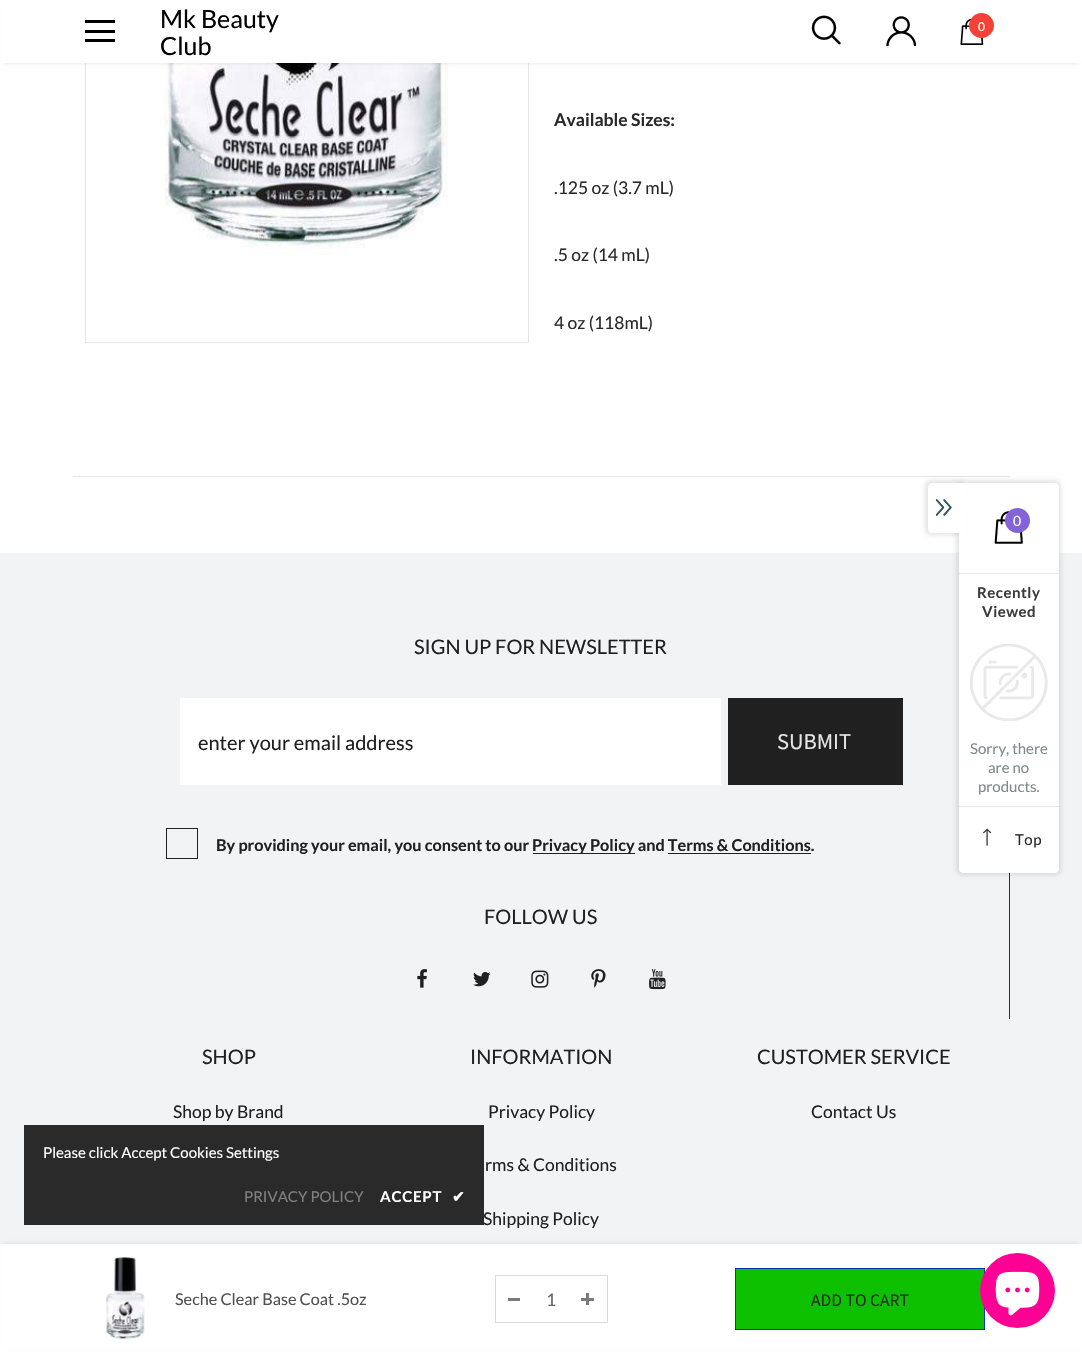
#include "include/core/SkBlurTypes.h"
#include "include/core/SkCanvas.h"
#include "include/core/SkData.h"
#include "include/core/SkFont.h"
#include "include/core/SkFontMgr.h"
#include "include/core/SkImage.h"
#include "include/core/SkMaskFilter.h"
#include "include/core/SkPaint.h"
#include "include/core/SkPathBuilder.h"
#include "include/core/SkTextBlob.h"
#include "include/effects/SkDashPathEffect.h"
#include "include/effects/SkGradientShader.h"
#include "include/utils/SkParsePath.h"

extern sk_sp<SkFontMgr> fontMgr;

static SkFont font(const char* family, int weight, float size, bool italic = false) {
    SkFontStyle style(weight, SkFontStyle::kNormal_Width,
        italic ? SkFontStyle::kItalic_Slant : SkFontStyle::kUpright_Slant);
    SkFont result(fontMgr->matchFamilyStyle(family, style), size);
    result.setSubpixel(true);
    return result;
}

static void drawLabel(SkCanvas* canvas, const char* s, float x, float y, const SkFont& font, SkColor color) {
    SkPaint ink(SkColor4f::FromColor(color));
    ink.setAntiAlias(true);
    canvas->drawString(s, x, y, font, ink);
}

static void drawTracked(SkCanvas* canvas, const char* s, float x, float y, const SkFont& font, const SkPaint& ink, float letter, float word) {
    std::vector<SkGlyphID> glyphs(font.countText(s, strlen(s), SkTextEncoding::kUTF8));
    std::vector<float> xs(glyphs.size());
    font.textToGlyphs(s, strlen(s), SkTextEncoding::kUTF8, glyphs);
    font.getXPos(glyphs, xs, x);
    float extra = 0;
    for (size_t i = 0; i < glyphs.size(); i++) {
        xs[i] += extra;
        extra += letter + word * (glyphs[i] == font.unicharToGlyph(' '));
    }
    canvas->drawTextBlob(SkTextBlob::MakeFromPosHGlyphs(glyphs, xs, y, font), 0, 0, ink);
}

static void fillRect(SkCanvas* canvas, float x, float y, float w, float h, SkColor color) {
    SkPaint ink(SkColor4f::FromColor(color));
    ink.setAntiAlias(true);
    canvas->drawRect(SkRect::MakeXYWH(x, y, w, h), ink);
}

static void drawPhoto(SkCanvas* canvas, const char* path, float x, float y, float w, float h) {
    auto image = SkImages::DeferredFromEncodedData(SkData::MakeFromFileName(path));
    canvas->drawImageRect(image, SkRect::MakeXYWH(x, y, w, h), SkSamplingOptions());
}

static SkPath parsePath(const char* data, bool evenOdd = false) {
    SkPath result = *SkParsePath::FromSVGString(data);
    if (evenOdd) result.setFillType(SkPathFillType::kEvenOdd);
    return result;
}

void draw(SkCanvas* canvas) {
    SkPaint paint;
    paint.setAntiAlias(true);
    canvas->clear(0xFFFFFFFF);
    paint.setStroke(true);
    paint.setStrokeWidth(1);
    paint.setColor(0xFFE6E6E6);
    canvas->drawRect(SkRect::MakeXYWH(85.5f, -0.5f, 443, 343), paint);
    drawPhoto(canvas, "assets/img4.png", 164, 63, 284, 192);
    paint.setStroke(false);
    paint.setColor(0x1F000000);
    paint.setMaskFilter(SkMaskFilter::MakeBlur(kNormal_SkBlurStyle, 2));
    canvas->drawRect(SkRect::MakeXYWH(4, 8, 1075, 55), paint);
    paint.setMaskFilter(nullptr);
    fillRect(canvas, 1, 0, 1081, 63, 0xFFFFFFFF);
    fillRect(canvas, 85, 20, 30, 3, 0xFF000000);
    fillRect(canvas, 85, 30, 30, 3, 0xFF000000);
    fillRect(canvas, 85, 39, 30, 3, 0xFF000000);
    SkFont font1 = font("Lato", 400, 25);
    drawLabel(canvas, "Mk Beauty", 160, 28, font1, 0xFF000000);
    drawLabel(canvas, "Club", 160, 55, font1, 0xFF000000);
    drawPhoto(canvas, "assets/img1.png", 811, 15, 30, 30);
    drawPhoto(canvas, "assets/img2.png", 886, 16, 30, 30);
    drawPhoto(canvas, "assets/img3.png", 960, 19, 24, 26);
    paint.setColor(0xFFF44336);
    canvas->drawCircle(981.5f, 25.5f, 12.5f, paint);
    SkFont font2 = font("Lato", 400, 12);
    drawLabel(canvas, "0", 978, 31, font2, 0xFFFFFFFF);
    SkFont font3 = font("Lato", 700, 17.5f);
    drawLabel(canvas, "Available Sizes:", 554, 126, font3, 0xFF292929);
    SkFont font4 = font("Lato", 400, 17.5f);
    drawLabel(canvas, ".125 oz (3.7 mL)", 554, 194, font4, 0xFF292929);
    drawLabel(canvas, ".5 oz (14 mL)", 554, 261, font4, 0xFF292929);
    drawLabel(canvas, "4 oz (118mL)", 554, 329, font4, 0xFF292929);
    fillRect(canvas, 73, 476, 937, 1, 0xFFE6E6E6);
    fillRect(canvas, 0, 553, 1082, 691, 0xFFF2F3F5);
    drawLabel(canvas, "Shipping Policy", 483, 1225, font4, 0xFF202020);
    fillRect(canvas, 24, 1125, 460, 100, 0xE6141414);
    SkFont font5 = font("Lato", 400, 15);
    drawLabel(canvas, "Please click Accept Cookies Settings", 43, 1158, font5, 0xFFFFFFFF);
    drawLabel(canvas, "PRIVACY POLICY", 244, 1202, font5, 0xFF818181);
    SkFont font6 = font("Lato", 700, 15);
    paint.setColor(0xFFFFFFFF);
    drawTracked(canvas, "ACCEPT", 380, 1202, font6, paint, 0.75f, 0);
    SkFont font7 = font("DejaVu Sans", 700, 15);
    drawTracked(canvas, "✔", 452, 1202, font7, paint, 0.75f, 0);
    paint.setColor(0x1A000000);
    paint.setMaskFilter(SkMaskFilter::MakeBlur(kNormal_SkBlurStyle, 2));
    canvas->drawRect(SkRect::MakeXYWH(4, 1244, 1075, 102), paint);
    paint.setMaskFilter(nullptr);
    fillRect(canvas, 1, 1244, 1081, 105, 0xFFFFFFFF);
    drawPhoto(canvas, "assets/img5.png", 106, 1257, 39, 83);
    SkFont font8 = font("Lato", 400, 16.25f);
    drawLabel(canvas, "Seche Clear Base Coat .5oz", 175, 1305, font8, 0xFF505050);
    paint.setStroke(true);
    paint.setColor(0xFFDADADA);
    canvas->drawRect(SkRect::MakeXYWH(495.5f, 1275.5f, 112, 47), paint);
    fillRect(canvas, 508, 1298, 12, 3, 0xFF7B7B7B);
    drawLabel(canvas, "1", 546, 1306, font4, 0xFF646464);
    fillRect(canvas, 581, 1298, 13, 3, 0xFF7B7B7B);
    fillRect(canvas, 586, 1293, 3, 12, 0xFF7B7B7B);
    paint.setStroke(false);
    paint.setColor(0xFF0EC100);
    canvas->drawRect(SkRect::MakeXYWH(735.5f, 1268.5f, 249, 61), paint);
    paint.setStroke(true);
    paint.setColor(0xFF0833BC);
    canvas->drawRect(SkRect::MakeXYWH(735.5f, 1268.5f, 249, 61), paint);
    SkFont font9 = font("Source Sans Pro", 400, 17.5f);
    drawLabel(canvas, "ADD TO CART", 811, 1306, font9, 0xFF292929);
    fillRect(canvas, 1009, 873, 1, 146, 0xFF2D2D2D);
    SkFont font10 = font("Lato", 400, 20);
    drawLabel(canvas, "SIGN UP FOR NEWSLETTER", 414, 654, font10, 0xFF202020);
    fillRect(canvas, 180, 698, 541, 87, 0xFFFFFFFF);
    drawLabel(canvas, "enter your email address", 198, 750, font10, 0xFF202020);
    fillRect(canvas, 728, 698, 175, 87, 0xFF202020);
    SkFont font11 = font("Source Sans Pro", 400, 22.5f);
    drawLabel(canvas, "SUBMIT", 777, 749, font11, 0xFFE6E6E6);
    paint.setColor(0xFF202020);
    canvas->drawRect(SkRect::MakeXYWH(166.5f, 828.5f, 31, 30), paint);
    SkFont font12 = font("Lato", 700, 16.25f);
    drawLabel(canvas, "By providing your email, you consent to our", 216, 851, font12, 0xFF202020);
    fillRect(canvas, 533, 853, 102, 1, 0xFF202020);
    drawLabel(canvas, "Privacy Policy and Terms & Conditions.", 532, 851, font12, 0xFF202020);
    fillRect(canvas, 668, 853, 143, 1, 0xFF202020);
    drawLabel(canvas, "FOLLOW US", 484, 924, font10, 0xFF202020);
    drawPhoto(canvas, "assets/img6.png", 417, 969, 10, 19);
    drawPhoto(canvas, "assets/img7.png", 473, 972, 18, 15);
    drawPhoto(canvas, "assets/img8.png", 531, 970, 18, 18);
    drawPhoto(canvas, "assets/img9.png", 591, 969, 15, 19);
    drawPhoto(canvas, "assets/img10.png", 649, 969, 17, 21);
    drawLabel(canvas, "SHOP", 202, 1064, font10, 0xFF202020);
    drawLabel(canvas, "Shop by Brand", 173, 1118, font4, 0xFF202020);
    drawLabel(canvas, "INFORMATION", 470, 1064, font10, 0xFF202020);
    drawLabel(canvas, "Privacy Policy", 488, 1118, font4, 0xFF202020);
    drawLabel(canvas, "rms & Conditions", 485, 1171, font4, 0xFF202020);
    drawLabel(canvas, "CUSTOMER SERVICE", 757, 1064, font10, 0xFF202020);
    drawLabel(canvas, "Contact Us", 811, 1118, font4, 0xFF202020);
    paint.setStroke(false);
    paint.setColor(0x1A000000);
    paint.setMaskFilter(SkMaskFilter::MakeBlur(kNormal_SkBlurStyle, 2));
    canvas->drawRoundRect(SkRect::MakeXYWH(956, 480, 105, 395), 6, 6, paint);
    paint.setMaskFilter(nullptr);
    paint.setColor(0xFFFFFFFF);
    canvas->drawPath(parsePath("M959 483H1055C1057 483 1059 485 1059 487V869C1059 871 1057 873 1055 873H963C961 873 959 871 959 869Z"), paint);
    paint.setColor(0x1A000000);
    paint.setMaskFilter(SkMaskFilter::MakeBlur(kNormal_SkBlurStyle, 2));
    canvas->drawRoundRect(SkRect::MakeXYWH(925, 480, 38, 55), 6, 6, paint);
    paint.setMaskFilter(nullptr);
    paint.setColor(0xFFFFFFFF);
    canvas->drawPath(parsePath("M932 483H960V533H932C930 533 928 531 928 529V487C928 485 930 483 932 483Z"), paint);
    drawPhoto(canvas, "assets/img11.png", 935, 499, 17, 17);
    fillRect(canvas, 959, 483, 7, 54, 0xFFFFFFFF);
    fillRect(canvas, 959, 573, 100, 1, 0xFFE7E7E7);
    drawPhoto(canvas, "assets/img12.png", 994, 511, 29, 33);
    paint.setColor(0xFF8463D8);
    canvas->drawCircle(1017.5f, 520.5f, 12.5f, paint);
    SkFont font13 = font("Lato", 400, 14);
    drawLabel(canvas, "0", 1013, 526, font13, 0xFFFFFFFF);
    paint.setColor(0xFF3C3C3C);
    drawTracked(canvas, "Recently", 977, 598, font6, paint, 0.5f, 0);
    drawTracked(canvas, "Viewed", 982, 617, font6, paint, 0.5f, 0);
    drawPhoto(canvas, "assets/img13.png", 970, 644, 78, 77);
    drawLabel(canvas, "Sorry, there", 970, 754, font5, 0xFF7D8B8E);
    drawLabel(canvas, "are no", 988, 773, font5, 0xFF7D8B8E);
    drawLabel(canvas, "products.", 978, 792, font5, 0xFF7D8B8E);
    fillRect(canvas, 959, 806, 100, 1, 0xFFE7E7E7);
    drawPhoto(canvas, "assets/img14.png", 983, 828, 9, 18);
    paint.setColor(0xFF292929);
    drawTracked(canvas, "Top", 1015, 845, font5, paint, 0.5f, 0);
    paint.setColor(0xFFFF0094);
    canvas->drawCircle(1017.5f, 1290.5f, 37.5f, paint);
    drawPhoto(canvas, "assets/img15.png", 995, 1271, 45, 45);
}
